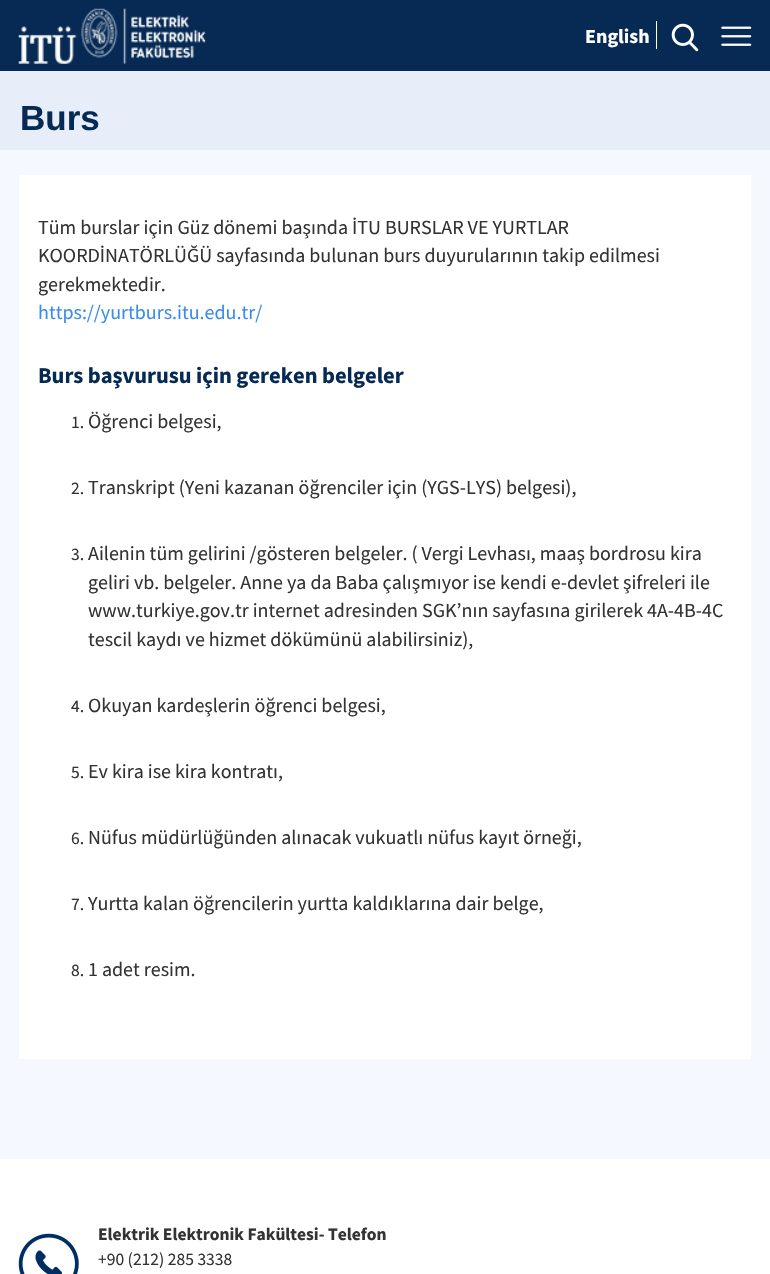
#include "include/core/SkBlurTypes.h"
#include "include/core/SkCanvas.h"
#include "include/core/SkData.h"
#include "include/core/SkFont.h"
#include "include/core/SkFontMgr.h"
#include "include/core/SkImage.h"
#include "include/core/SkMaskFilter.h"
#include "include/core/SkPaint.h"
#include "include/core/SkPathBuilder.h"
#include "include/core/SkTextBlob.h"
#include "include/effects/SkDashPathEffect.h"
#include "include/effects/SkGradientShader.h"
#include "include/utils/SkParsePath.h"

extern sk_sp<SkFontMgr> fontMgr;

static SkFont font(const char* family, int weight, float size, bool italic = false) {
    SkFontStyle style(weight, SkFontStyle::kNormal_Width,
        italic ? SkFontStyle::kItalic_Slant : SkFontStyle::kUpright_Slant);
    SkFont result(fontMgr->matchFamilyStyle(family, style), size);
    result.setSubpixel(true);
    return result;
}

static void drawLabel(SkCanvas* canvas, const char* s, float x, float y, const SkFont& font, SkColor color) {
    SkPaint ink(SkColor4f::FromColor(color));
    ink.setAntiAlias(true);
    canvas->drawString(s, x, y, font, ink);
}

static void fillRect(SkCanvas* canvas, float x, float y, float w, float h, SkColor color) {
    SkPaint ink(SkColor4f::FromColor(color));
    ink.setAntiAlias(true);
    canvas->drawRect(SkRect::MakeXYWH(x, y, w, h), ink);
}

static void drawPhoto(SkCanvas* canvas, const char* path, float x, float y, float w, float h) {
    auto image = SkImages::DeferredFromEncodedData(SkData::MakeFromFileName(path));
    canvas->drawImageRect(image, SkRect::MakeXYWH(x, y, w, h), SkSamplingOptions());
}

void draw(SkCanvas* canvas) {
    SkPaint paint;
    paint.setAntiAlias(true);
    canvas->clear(0xFFF5F8FE);
    fillRect(canvas, 0, 0, 770, 71, 0xFF062A54);
    drawPhoto(canvas, "assets/img1.png", 18, 8, 188, 56);
    SkFont font1 = font("Source Sans Pro", 700, 20);
    drawLabel(canvas, "English", 585, 43, font1, 0xFFFFFFFF);
    fillRect(canvas, 656, 21, 1, 28, 0xFFFFFFFF);
    drawPhoto(canvas, "assets/img2.png", 671, 23, 28, 29);
    drawPhoto(canvas, "assets/img3.png", 721, 26, 31, 20);
    fillRect(canvas, 0, 71, 770, 79, 0xFFE7EDF9);
    SkFont font2 = font("Liberation Sans", 700, 35);
    drawLabel(canvas, "Burs", 20, 130, font2, 0xFF062A54);
    fillRect(canvas, 19, 175, 732, 884, 0xFFFFFFFF);
    SkFont font3 = font("Source Sans Pro", 400, 20);
    drawLabel(canvas, "Tüm burslar için Güz dönemi başında İTU BURSLAR VE YURTLAR", 38, 234, font3, 0xFF333333);
    drawLabel(canvas, "KOORDİNATÖRLÜĞÜ sayfasında bulunan burs duyurularının takip edilmesi", 38, 262, font3, 0xFF333333);
    drawLabel(canvas, "gerekmektedir.", 38, 291, font3, 0xFF333333);
    drawLabel(canvas, "https://yurtburs.itu.edu.tr/", 38, 319, font3, 0xFF3B8CEA);
    SkFont font4 = font("Source Sans Pro", 700, 22.5f);
    drawLabel(canvas, "Burs başvurusu için gereken belgeler", 38, 383, font4, 0xFF062A54);
    SkFont font5 = font("Source Sans Pro", 400, 17.5f);
    drawLabel(canvas, "1.", 71, 428, font5, 0xFF333333);
    drawLabel(canvas, "Öğrenci belgesi,", 88, 428, font3, 0xFF333333);
    drawLabel(canvas, "2.", 71, 494, font5, 0xFF333333);
    drawLabel(canvas, "Transkript (Yeni kazanan öğrenciler için (YGS-LYS) belgesi),", 88, 494, font3, 0xFF333333);
    drawLabel(canvas, "3.", 71, 560, font5, 0xFF333333);
    drawLabel(canvas, "Ailenin tüm gelirini /gösteren belgeler. ( Vergi Levhası, maaş bordrosu kira", 88, 560, font3, 0xFF333333);
    drawLabel(canvas, "geliri vb. belgeler. Anne ya da Baba çalışmıyor ise kendi e-devlet şifreleri ile", 88, 589, font3, 0xFF333333);
    drawLabel(canvas, "www.turkiye.gov.tr internet adresinden SGK’nın sayfasına girilerek 4A-4B-4C", 88, 617, font3, 0xFF333333);
    drawLabel(canvas, "tescil kaydı ve hizmet dökümünü alabilirsiniz),", 88, 646, font3, 0xFF333333);
    drawLabel(canvas, "4.", 71, 712, font5, 0xFF333333);
    drawLabel(canvas, "Okuyan kardeşlerin öğrenci belgesi,", 88, 712, font3, 0xFF333333);
    drawLabel(canvas, "5.", 71, 778, font5, 0xFF333333);
    drawLabel(canvas, "Ev kira ise kira kontratı,", 88, 778, font3, 0xFF333333);
    drawLabel(canvas, "6.", 71, 844, font5, 0xFF333333);
    drawLabel(canvas, "Nüfus müdürlüğünden alınacak vukuatlı nüfus kayıt örneği,", 88, 844, font3, 0xFF333333);
    drawLabel(canvas, "7.", 71, 910, font5, 0xFF333333);
    drawLabel(canvas, "Yurtta kalan öğrencilerin yurtta kaldıklarına dair belge,", 88, 910, font3, 0xFF333333);
    drawLabel(canvas, "8.", 71, 976, font5, 0xFF333333);
    drawLabel(canvas, "1 adet resim.", 88, 976, font3, 0xFF333333);
    fillRect(canvas, 0, 1159, 770, 115, 0xFFFFFFFF);
    drawPhoto(canvas, "assets/img4.png", 18, 1233, 61, 41);
    SkFont font6 = font("Source Sans Pro", 700, 17.5f);
    drawLabel(canvas, "Elektrik Elektronik Fakültesi- Telefon", 98, 1240, font6, 0xFF333333);
    drawLabel(canvas, "+90 (212) 285 3338", 98, 1265, font5, 0xFF333333);
}
